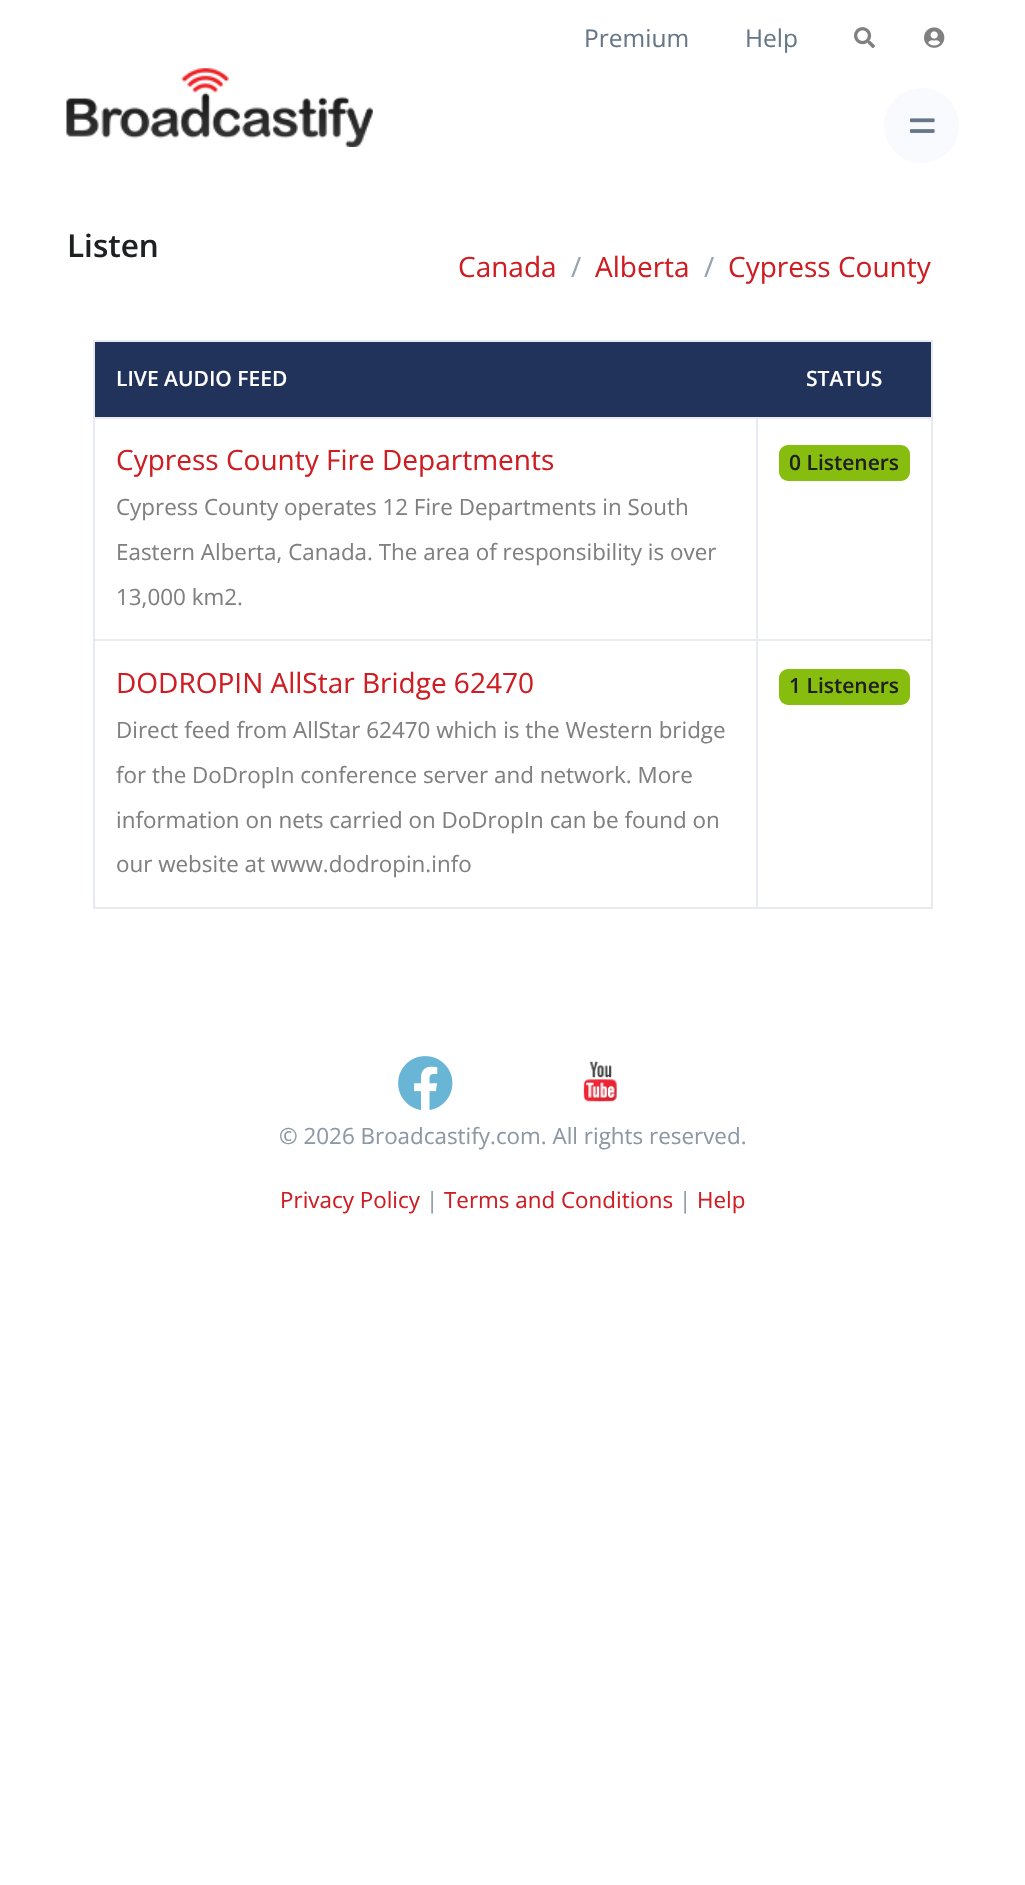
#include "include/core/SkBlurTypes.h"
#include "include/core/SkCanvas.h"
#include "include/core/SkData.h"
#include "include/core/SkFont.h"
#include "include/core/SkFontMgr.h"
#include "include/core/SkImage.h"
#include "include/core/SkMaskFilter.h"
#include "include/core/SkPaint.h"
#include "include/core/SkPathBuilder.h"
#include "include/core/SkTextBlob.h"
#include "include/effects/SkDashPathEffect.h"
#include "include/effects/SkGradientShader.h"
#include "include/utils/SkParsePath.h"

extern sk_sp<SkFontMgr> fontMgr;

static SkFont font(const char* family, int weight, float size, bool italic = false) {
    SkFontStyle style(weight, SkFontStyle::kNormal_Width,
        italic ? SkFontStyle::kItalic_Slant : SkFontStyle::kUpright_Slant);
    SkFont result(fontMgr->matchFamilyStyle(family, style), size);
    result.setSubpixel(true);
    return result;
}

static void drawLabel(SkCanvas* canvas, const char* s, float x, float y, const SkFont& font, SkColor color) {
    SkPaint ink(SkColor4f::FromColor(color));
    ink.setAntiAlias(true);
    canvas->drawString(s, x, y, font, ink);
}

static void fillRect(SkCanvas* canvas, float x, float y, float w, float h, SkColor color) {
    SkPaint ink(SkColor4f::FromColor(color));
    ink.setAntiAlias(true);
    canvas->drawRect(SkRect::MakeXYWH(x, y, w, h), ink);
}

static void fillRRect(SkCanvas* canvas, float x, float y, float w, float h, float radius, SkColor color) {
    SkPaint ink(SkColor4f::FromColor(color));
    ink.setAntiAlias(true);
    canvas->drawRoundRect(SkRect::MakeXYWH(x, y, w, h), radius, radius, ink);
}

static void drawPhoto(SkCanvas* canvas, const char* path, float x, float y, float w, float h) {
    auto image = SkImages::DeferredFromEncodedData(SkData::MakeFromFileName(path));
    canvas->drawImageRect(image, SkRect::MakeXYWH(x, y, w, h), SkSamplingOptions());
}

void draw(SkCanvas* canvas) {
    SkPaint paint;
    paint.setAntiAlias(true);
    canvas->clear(0xFFFFFFFF);
    SkFont font1 = font("Open Sans", 400, 24.5f);
    drawLabel(canvas, "Premium", 584, 47, font1, 0xFF677788);
    drawLabel(canvas, "Help", 745, 47, font1, 0xFF677788);
    drawPhoto(canvas, "assets/img1.png", 854, 27, 21, 22);
    drawPhoto(canvas, "assets/img2.png", 924, 27, 21, 21);
    drawPhoto(canvas, "assets/img3.png", 66, 68, 307, 79);
    paint.setColor(0xFFF8FAFD);
    canvas->drawCircle(921.5f, 125.5f, 37.5f, paint);
    drawPhoto(canvas, "assets/img4.png", 910, 118, 25, 15);
    SkFont font2 = font("Open Sans", 600, 31.5f);
    drawLabel(canvas, "Listen", 67, 257, font2, 0xFF1E2022);
    SkFont font3 = font("Open Sans", 400, 28);
    drawLabel(canvas, "Canada", 458, 277, font3, 0xFFCF1E23);
    drawLabel(canvas, "/", 571, 277, font3, 0xFF97A4AF);
    drawLabel(canvas, "Alberta", 595, 277, font3, 0xFFCF1E23);
    drawLabel(canvas, "/", 704, 277, font3, 0xFF97A4AF);
    drawLabel(canvas, "Cypress County", 728, 277, font3, 0xFFCF1E23);
    fillRect(canvas, 93, 340, 840, 2, 0xFFE7EAF3);
    fillRect(canvas, 931, 340, 2, 568, 0xFFE7EAF3);
    fillRect(canvas, 93, 907, 840, 2, 0xFFE7EAF3);
    fillRect(canvas, 93, 340, 2, 568, 0xFFE7EAF3);
    fillRect(canvas, 95, 342, 836, 75, 0xFF21325B);
    SkFont font4 = font("Open Sans", 600, 21);
    drawLabel(canvas, "LIVE AUDIO FEED", 116, 386, font4, 0xFFFFFFFF);
    drawLabel(canvas, "STATUS", 806, 386, font4, 0xFFFFFFFF);
    fillRect(canvas, 756, 417, 177, 2, 0xFFE7EAF3);
    fillRect(canvas, 756, 639, 177, 2, 0xFFE7EAF3);
    fillRect(canvas, 756, 639, 2, 269, 0xFFE7EAF3);
    fillRect(canvas, 93, 639, 665, 2, 0xFFE7EAF3);
    fillRect(canvas, 756, 417, 2, 224, 0xFFE7EAF3);
    fillRect(canvas, 93, 417, 665, 2, 0xFFE7EAF3);
    drawLabel(canvas, "Cypress County Fire Departments", 116, 470, font3, 0xFFCF1E23);
    SkFont font5 = font("Open Sans", 400, 22.4f);
    drawLabel(canvas, "Cypress County operates 12 Fire Departments in South", 116, 515, font5, 0xFF808080);
    drawLabel(canvas, "Eastern Alberta, Canada. The area of responsibility is over", 116, 560, font5, 0xFF808080);
    drawLabel(canvas, "13,000 km2.", 116, 605, font5, 0xFF808080);
    fillRRect(canvas, 779, 445, 131, 36, 9, 0xFF87BD0E);
    drawLabel(canvas, "0 Listeners", 789, 470, font4, 0xFF1E2022);
    drawLabel(canvas, "DODROPIN AllStar Bridge 62470", 116, 693, font3, 0xFFCF1E23);
    drawLabel(canvas, "Direct feed from AllStar 62470 which is the Western bridge", 116, 738, font5, 0xFF808080);
    drawLabel(canvas, "for the DoDropIn conference server and network. More", 116, 783, font5, 0xFF808080);
    drawLabel(canvas, "information on nets carried on DoDropIn can be found on", 116, 828, font5, 0xFF808080);
    drawLabel(canvas, "our website at www.dodropin.info", 116, 872, font5, 0xFF808080);
    fillRRect(canvas, 779, 669, 131, 36, 9, 0xFF87BD0E);
    drawLabel(canvas, "1 Listeners", 789, 693, font4, 0xFF1E2022);
    drawPhoto(canvas, "assets/img5.png", 398, 1056, 55, 54);
    drawPhoto(canvas, "assets/img6.png", 583, 1061, 34, 41);
    drawLabel(canvas, "© 2026 Broadcastify.com. All rights reserved.", 279, 1144, font5, 0xFF8C98A4);
    drawLabel(canvas, "Privacy Policy", 280, 1208, font5, 0xFFCF1E23);
    drawLabel(canvas, "|", 426, 1208, font5, 0xFF8C98A4);
    drawLabel(canvas, "Terms and Conditions", 444, 1208, font5, 0xFFCF1E23);
    drawLabel(canvas, "|", 679, 1208, font5, 0xFF8C98A4);
    drawLabel(canvas, "Help", 697, 1208, font5, 0xFFCF1E23);
}
